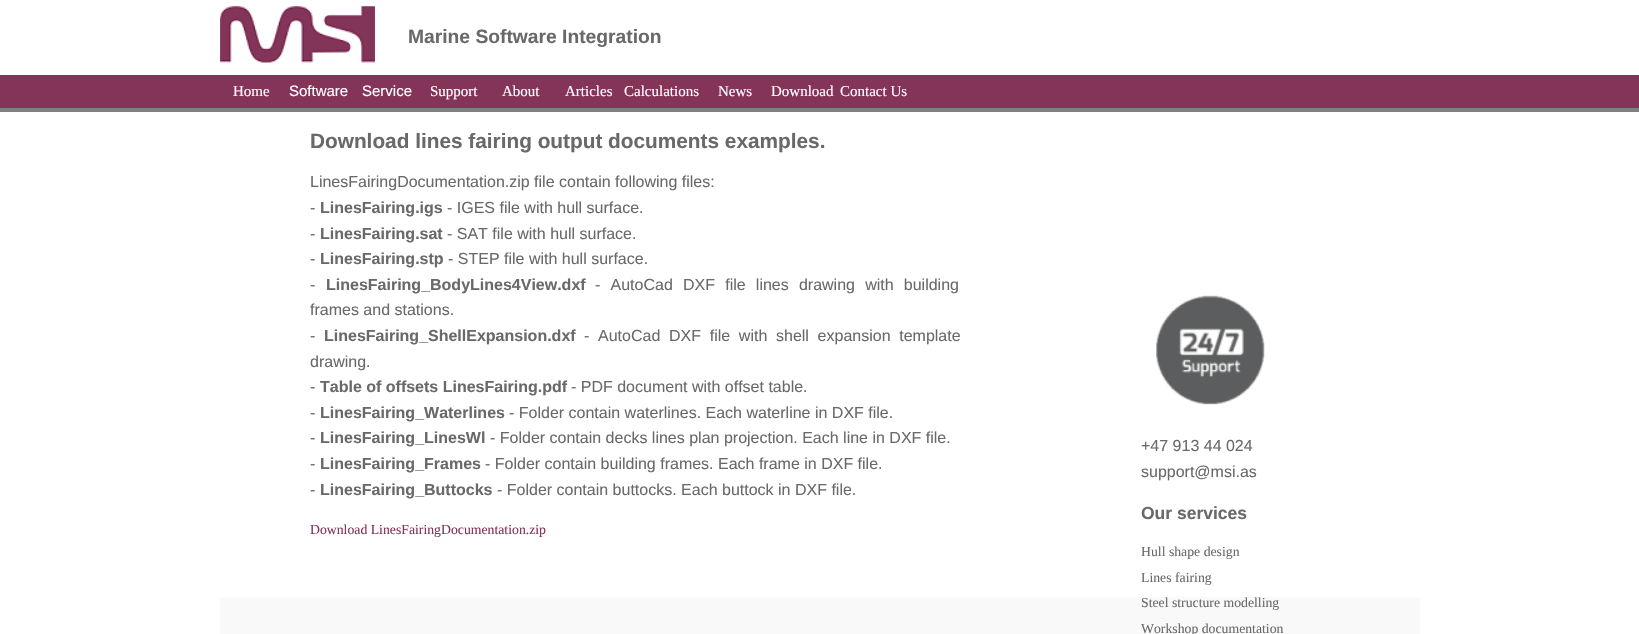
#include "include/core/SkBlurTypes.h"
#include "include/core/SkCanvas.h"
#include "include/core/SkData.h"
#include "include/core/SkFont.h"
#include "include/core/SkFontMgr.h"
#include "include/core/SkImage.h"
#include "include/core/SkMaskFilter.h"
#include "include/core/SkPaint.h"
#include "include/core/SkPathBuilder.h"
#include "include/core/SkTextBlob.h"
#include "include/effects/SkDashPathEffect.h"
#include "include/effects/SkGradientShader.h"
#include "include/utils/SkParsePath.h"

extern sk_sp<SkFontMgr> fontMgr;

static SkFont font(const char* family, int weight, float size, bool italic = false) {
    SkFontStyle style(weight, SkFontStyle::kNormal_Width,
        italic ? SkFontStyle::kItalic_Slant : SkFontStyle::kUpright_Slant);
    SkFont result(fontMgr->matchFamilyStyle(family, style), size);
    result.setSubpixel(true);
    return result;
}

static void drawLabel(SkCanvas* canvas, const char* s, float x, float y, const SkFont& font, SkColor color) {
    SkPaint ink(SkColor4f::FromColor(color));
    ink.setAntiAlias(true);
    canvas->drawString(s, x, y, font, ink);
}

static void drawTracked(SkCanvas* canvas, const char* s, float x, float y, const SkFont& font, const SkPaint& ink, float letter, float word) {
    std::vector<SkGlyphID> glyphs(font.countText(s, strlen(s), SkTextEncoding::kUTF8));
    std::vector<float> xs(glyphs.size());
    font.textToGlyphs(s, strlen(s), SkTextEncoding::kUTF8, glyphs);
    font.getXPos(glyphs, xs, x);
    float extra = 0;
    for (size_t i = 0; i < glyphs.size(); i++) {
        xs[i] += extra;
        extra += letter + word * (glyphs[i] == font.unicharToGlyph(' '));
    }
    canvas->drawTextBlob(SkTextBlob::MakeFromPosHGlyphs(glyphs, xs, y, font), 0, 0, ink);
}

static void fillRect(SkCanvas* canvas, float x, float y, float w, float h, SkColor color) {
    SkPaint ink(SkColor4f::FromColor(color));
    ink.setAntiAlias(true);
    canvas->drawRect(SkRect::MakeXYWH(x, y, w, h), ink);
}

static void drawPhoto(SkCanvas* canvas, const char* path, float x, float y, float w, float h) {
    auto image = SkImages::DeferredFromEncodedData(SkData::MakeFromFileName(path));
    canvas->drawImageRect(image, SkRect::MakeXYWH(x, y, w, h), SkSamplingOptions());
}

void draw(SkCanvas* canvas) {
    SkPaint paint;
    paint.setAntiAlias(true);
    canvas->clear(0xFFFFFFFF);
    drawPhoto(canvas, "assets/img1.png", 220, 6, 155, 57);
    SkFont font1 = font("Liberation Sans", 700, 19.25f);
    drawLabel(canvas, "Marine Software Integration", 408, 43, font1, 0xFF696969);
    fillRect(canvas, 0, 75, 1639, 33, 0xFF843459);
    SkFont font2 = font("Liberation Serif", 400, 15);
    drawLabel(canvas, "Home", 233, 96, font2, 0xFFFFFFFF);
    SkFont font3 = font("Liberation Sans", 400, 15);
    drawLabel(canvas, "Software", 289, 96, font3, 0xFFFFFFFF);
    drawLabel(canvas, "Service", 362, 96, font3, 0xFFFFFFFF);
    drawLabel(canvas, "Support", 430, 96, font2, 0xFFFFFFFF);
    drawLabel(canvas, "About", 502, 96, font2, 0xFFFFFFFF);
    drawLabel(canvas, "Articles", 565, 96, font2, 0xFFFFFFFF);
    drawLabel(canvas, "Calculations", 624, 96, font2, 0xFFFFFFFF);
    drawLabel(canvas, "News", 718, 96, font2, 0xFFFFFFFF);
    drawLabel(canvas, "Download", 771, 96, font2, 0xFFFFFFFF);
    drawLabel(canvas, "Contact Us", 840, 96, font2, 0xFFFFFFFF);
    fillRect(canvas, 0, 108, 1639, 4, 0xFF808080);
    fillRect(canvas, 220, 597, 1200, 37, 0xFFF9F9F9);
    SkFont font4 = font("Liberation Sans", 700, 20.8f);
    drawLabel(canvas, "Download lines fairing output documents examples.", 310, 148, font4, 0xFF696969);
    SkFont font5 = font("Liberation Sans", 400, 16);
    drawLabel(canvas, "LinesFairingDocumentation.zip file contain following files:", 310, 187, font5, 0xFF696969);
    drawLabel(canvas, "-", 310, 213, font5, 0xFF696969);
    SkFont font6 = font("Liberation Sans", 700, 16);
    drawLabel(canvas, "LinesFairing.igs", 320, 213, font6, 0xFF696969);
    drawLabel(canvas, "- IGES file with hull surface.", 447, 213, font5, 0xFF696969);
    drawLabel(canvas, "-", 310, 239, font5, 0xFF696969);
    drawLabel(canvas, "LinesFairing.sat", 320, 239, font6, 0xFF696969);
    drawLabel(canvas, "- SAT file with hull surface.", 447, 239, font5, 0xFF696969);
    drawLabel(canvas, "-", 310, 264, font5, 0xFF696969);
    drawLabel(canvas, "LinesFairing.stp", 320, 264, font6, 0xFF696969);
    drawLabel(canvas, "- STEP file with hull surface.", 448, 264, font5, 0xFF696969);
    drawLabel(canvas, "-", 310, 290, font5, 0xFF696969);
    drawLabel(canvas, "LinesFairing_BodyLines4View.dxf", 326, 290, font6, 0xFF696969);
    paint.setColor(0xFF696969);
    drawTracked(canvas, "- AutoCad DXF file lines drawing with building", 595, 290, font5, paint, 0, 5.75f);
    drawLabel(canvas, "frames and stations.", 310, 315, font5, 0xFF696969);
    drawLabel(canvas, "-", 310, 341, font5, 0xFF696969);
    drawLabel(canvas, "LinesFairing_ShellExpansion.dxf", 324, 341, font6, 0xFF696969);
    drawTracked(canvas, "- AutoCad DXF file with shell expansion template", 584, 341, font5, paint, 0, 4.25f);
    drawLabel(canvas, "drawing.", 310, 367, font5, 0xFF696969);
    drawLabel(canvas, "-", 310, 392, font5, 0xFF696969);
    drawLabel(canvas, "Table of offsets LinesFairing.pdf", 320, 392, font6, 0xFF696969);
    drawLabel(canvas, "- PDF document with offset table.", 571, 392, font5, 0xFF696969);
    drawLabel(canvas, "-", 310, 418, font5, 0xFF696969);
    drawLabel(canvas, "LinesFairing_Waterlines", 320, 418, font6, 0xFF696969);
    drawLabel(canvas, "- Folder contain waterlines. Each waterline in DXF file.", 509, 418, font5, 0xFF696969);
    drawLabel(canvas, "-", 310, 443, font5, 0xFF696969);
    drawLabel(canvas, "LinesFairing_LinesWl", 320, 443, font6, 0xFF696969);
    drawLabel(canvas, "- Folder contain decks lines plan projection. Each line in DXF file.", 490, 443, font5, 0xFF696969);
    drawLabel(canvas, "-", 310, 469, font5, 0xFF696969);
    drawLabel(canvas, "LinesFairing_Frames", 320, 469, font6, 0xFF696969);
    drawLabel(canvas, "- Folder contain building frames. Each frame in DXF file.", 485, 469, font5, 0xFF696969);
    drawLabel(canvas, "-", 310, 495, font5, 0xFF696969);
    drawLabel(canvas, "LinesFairing_Buttocks", 320, 495, font6, 0xFF696969);
    drawLabel(canvas, "- Folder contain buttocks. Each buttock in DXF file.", 497, 495, font5, 0xFF696969);
    SkFont font7 = font("Liberation Serif", 400, 13.75f);
    drawLabel(canvas, "Download LinesFairingDocumentation.zip", 310, 534, font7, 0xFF843459);
    drawPhoto(canvas, "assets/img2.png", 1156, 295, 109, 110);
    drawLabel(canvas, "+47 913 44 024", 1141, 451, font5, 0xFF696969);
    drawLabel(canvas, "support@msi.as", 1141, 477, font5, 0xFF696969);
    SkFont font8 = font("Liberation Sans", 700, 17.5f);
    drawLabel(canvas, "Our services", 1141, 519, font8, 0xFF696969);
    drawLabel(canvas, "Hull shape design", 1141, 556, font7, 0xFF696969);
    drawLabel(canvas, "Lines fairing", 1141, 582, font7, 0xFF696969);
    drawLabel(canvas, "Steel structure modelling", 1141, 607, font7, 0xFF696969);
    drawLabel(canvas, "Workshop documentation", 1141, 633, font7, 0xFF696969);
}
